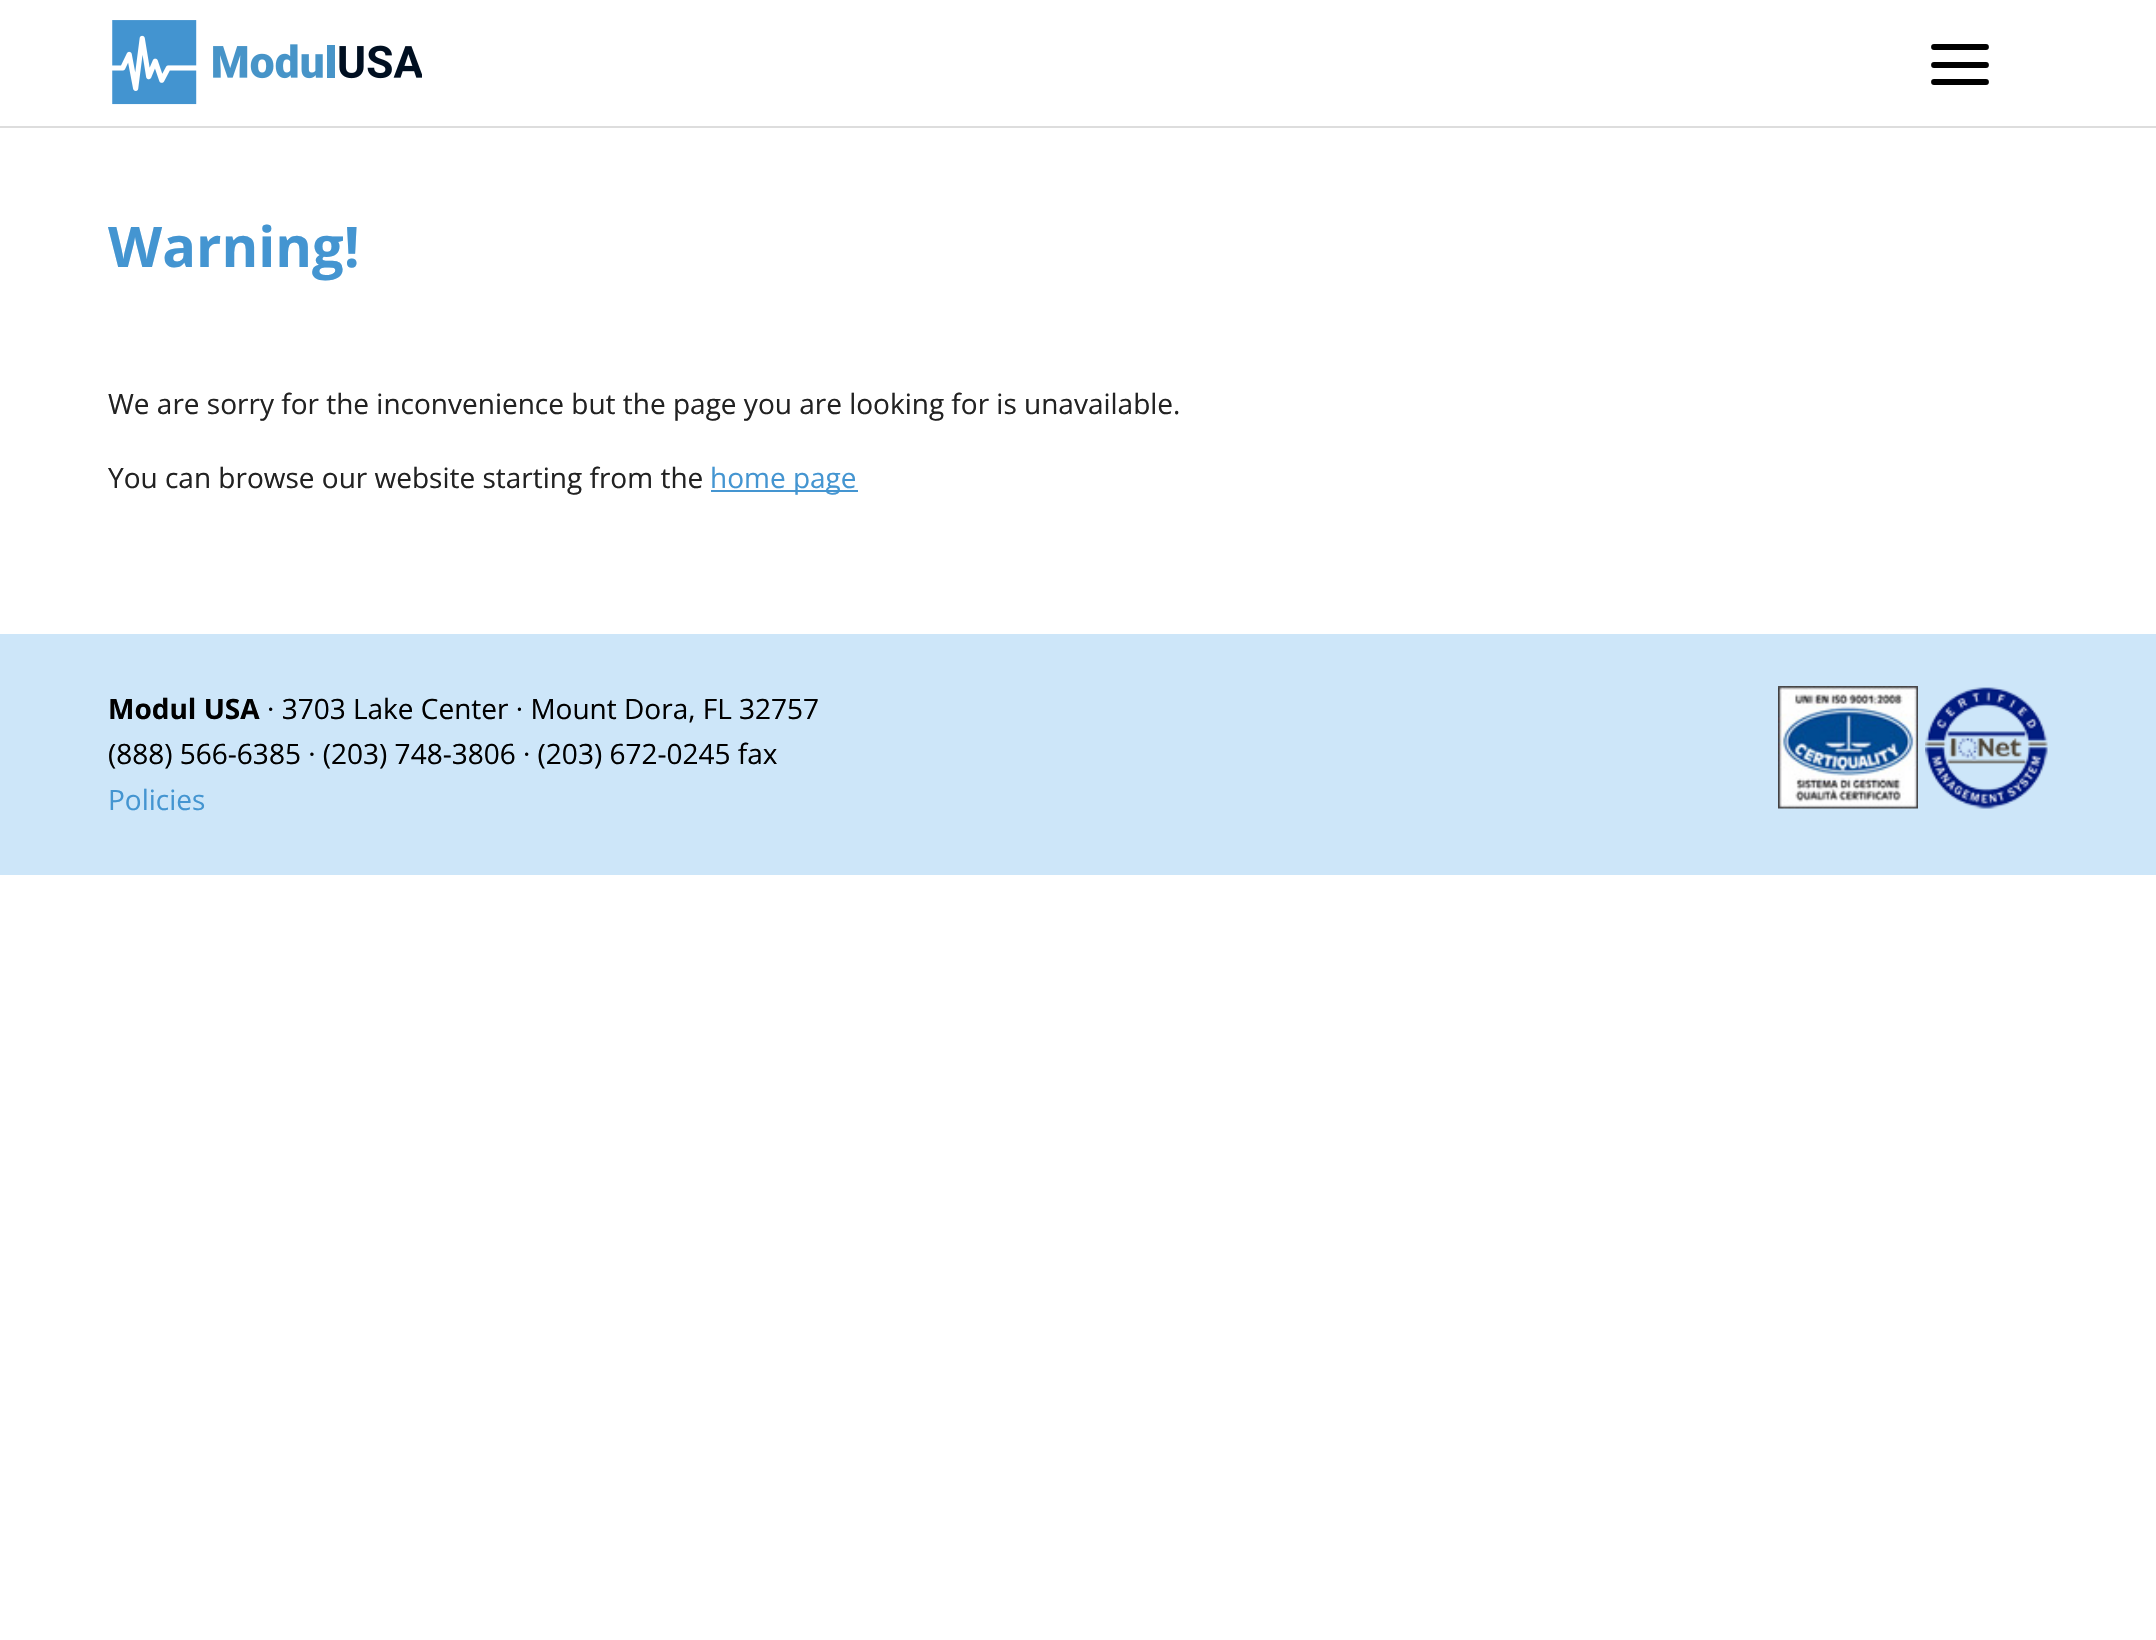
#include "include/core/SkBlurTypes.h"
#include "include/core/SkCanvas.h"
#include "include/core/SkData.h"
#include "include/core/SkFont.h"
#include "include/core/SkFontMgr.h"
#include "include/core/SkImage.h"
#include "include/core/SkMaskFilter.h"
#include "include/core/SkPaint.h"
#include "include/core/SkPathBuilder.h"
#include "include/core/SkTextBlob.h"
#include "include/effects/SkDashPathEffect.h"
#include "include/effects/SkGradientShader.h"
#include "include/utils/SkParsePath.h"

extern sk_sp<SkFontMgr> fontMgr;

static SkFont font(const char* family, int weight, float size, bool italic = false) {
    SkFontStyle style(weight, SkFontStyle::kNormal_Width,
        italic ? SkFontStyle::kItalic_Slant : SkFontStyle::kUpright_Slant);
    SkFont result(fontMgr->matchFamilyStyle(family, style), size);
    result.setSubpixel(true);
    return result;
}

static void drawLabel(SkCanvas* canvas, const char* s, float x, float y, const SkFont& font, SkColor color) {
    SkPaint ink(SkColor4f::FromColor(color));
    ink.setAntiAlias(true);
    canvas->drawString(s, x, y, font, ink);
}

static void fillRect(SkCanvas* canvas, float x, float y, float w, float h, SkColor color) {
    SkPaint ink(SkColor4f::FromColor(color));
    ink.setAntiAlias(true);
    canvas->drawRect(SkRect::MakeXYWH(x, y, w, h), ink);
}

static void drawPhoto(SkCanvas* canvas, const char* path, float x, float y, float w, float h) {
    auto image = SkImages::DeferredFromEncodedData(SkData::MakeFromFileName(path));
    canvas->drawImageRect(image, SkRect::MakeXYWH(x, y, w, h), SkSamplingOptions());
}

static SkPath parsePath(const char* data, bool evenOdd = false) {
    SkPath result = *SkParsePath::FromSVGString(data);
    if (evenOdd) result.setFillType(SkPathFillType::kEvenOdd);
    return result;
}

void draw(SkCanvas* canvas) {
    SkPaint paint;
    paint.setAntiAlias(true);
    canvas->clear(0xFFFFFFFF);
    fillRect(canvas, 0, 126, 2156, 2, 0xFFDDDDDD);
    drawPhoto(canvas, "assets/img1.png", 112, 20, 310, 85);
    paint.setStroke(true);
    paint.setStrokeWidth(5.8f);
    paint.setStrokeCap(SkPaint::kRound_Cap);
    paint.setStrokeJoin(SkPaint::kRound_Join);
    paint.setColor(0xFF000000);
    canvas->drawPath(parsePath("M1934 65H1986M1934 47H1986M1934 82H1986"), paint);
    SkFont font1 = font("Open Sans", 700, 56);
    drawLabel(canvas, "Warning!", 108, 267, font1, 0xFF4495D1);
    SkFont font2 = font("Open Sans", 400, 28);
    drawLabel(canvas, "We are sorry for the inconvenience but the page you are looking for is unavailable.", 108, 414, font2, 0xFF222222);
    drawLabel(canvas, "You can browse our website starting from the", 108, 488, font2, 0xFF222222);
    fillRect(canvas, 711, 490, 147, 2, 0xFF4495D1);
    drawLabel(canvas, "home page", 710, 488, font2, 0xFF4495D1);
    fillRect(canvas, 0, 634, 2156, 241, 0xFFCDE6F9);
    SkFont font3 = font("Open Sans", 700, 28);
    drawLabel(canvas, "Modul USA", 108, 719, font3, 0xFF000000);
    drawLabel(canvas, "· 3703 Lake Center · Mount Dora, FL 32757", 267, 719, font2, 0xFF000000);
    drawLabel(canvas, "(888) 566-6385 · (203) 748-3806 · (203) 672-0245 fax", 108, 764, font2, 0xFF000000);
    drawLabel(canvas, "Policies", 108, 810, font2, 0xFF4495D1);
    drawPhoto(canvas, "assets/img2.png", 1778, 686, 140, 123);
    drawPhoto(canvas, "assets/img3.png", 1925, 687, 123, 122);
}
